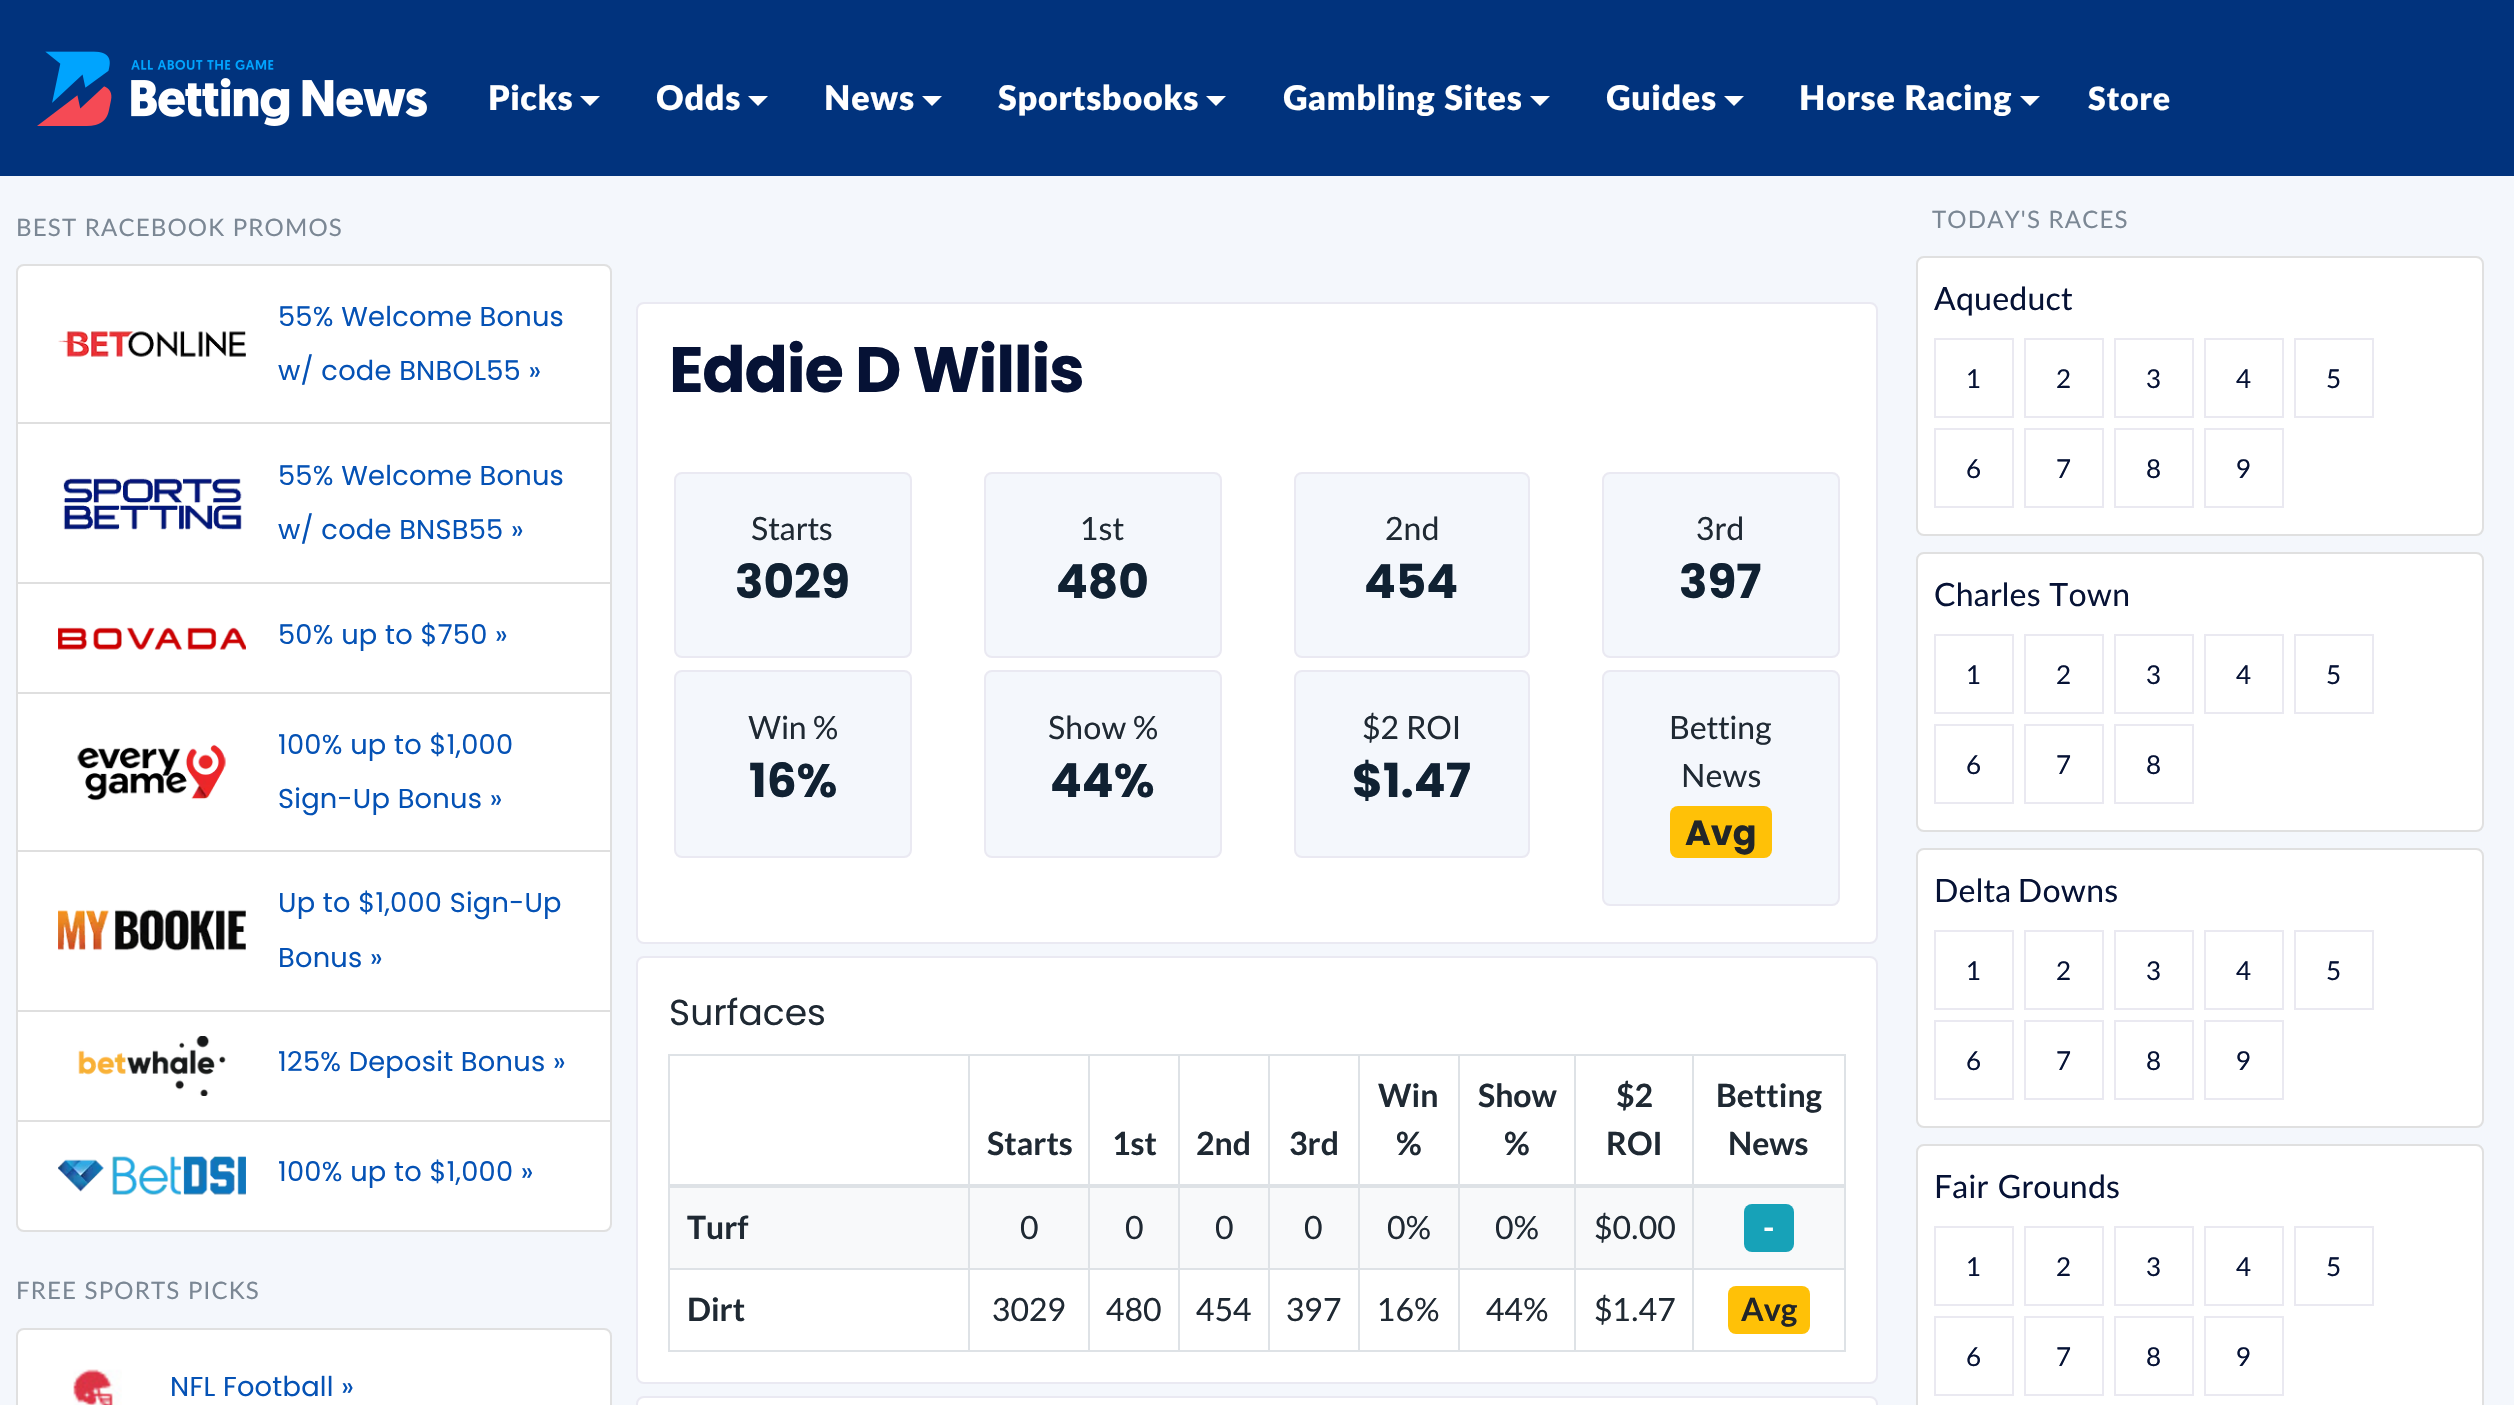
#include "include/core/SkBlurTypes.h"
#include "include/core/SkCanvas.h"
#include "include/core/SkData.h"
#include "include/core/SkFont.h"
#include "include/core/SkFontMgr.h"
#include "include/core/SkImage.h"
#include "include/core/SkMaskFilter.h"
#include "include/core/SkPaint.h"
#include "include/core/SkPathBuilder.h"
#include "include/core/SkTextBlob.h"
#include "include/effects/SkDashPathEffect.h"
#include "include/effects/SkGradientShader.h"
#include "include/utils/SkParsePath.h"

extern sk_sp<SkFontMgr> fontMgr;

static SkFont font(const char* family, int weight, float size, bool italic = false) {
    SkFontStyle style(weight, SkFontStyle::kNormal_Width,
        italic ? SkFontStyle::kItalic_Slant : SkFontStyle::kUpright_Slant);
    SkFont result(fontMgr->matchFamilyStyle(family, style), size);
    result.setSubpixel(true);
    return result;
}

static void drawLabel(SkCanvas* canvas, const char* s, float x, float y, const SkFont& font, SkColor color) {
    SkPaint ink(SkColor4f::FromColor(color));
    ink.setAntiAlias(true);
    canvas->drawString(s, x, y, font, ink);
}

static void drawTracked(SkCanvas* canvas, const char* s, float x, float y, const SkFont& font, const SkPaint& ink, float letter, float word) {
    std::vector<SkGlyphID> glyphs(font.countText(s, strlen(s), SkTextEncoding::kUTF8));
    std::vector<float> xs(glyphs.size());
    font.textToGlyphs(s, strlen(s), SkTextEncoding::kUTF8, glyphs);
    font.getXPos(glyphs, xs, x);
    float extra = 0;
    for (size_t i = 0; i < glyphs.size(); i++) {
        xs[i] += extra;
        extra += letter + word * (glyphs[i] == font.unicharToGlyph(' '));
    }
    canvas->drawTextBlob(SkTextBlob::MakeFromPosHGlyphs(glyphs, xs, y, font), 0, 0, ink);
}

static void fillRect(SkCanvas* canvas, float x, float y, float w, float h, SkColor color) {
    SkPaint ink(SkColor4f::FromColor(color));
    ink.setAntiAlias(true);
    canvas->drawRect(SkRect::MakeXYWH(x, y, w, h), ink);
}

static void fillRRect(SkCanvas* canvas, float x, float y, float w, float h, float radius, SkColor color) {
    SkPaint ink(SkColor4f::FromColor(color));
    ink.setAntiAlias(true);
    canvas->drawRoundRect(SkRect::MakeXYWH(x, y, w, h), radius, radius, ink);
}

static void drawPhoto(SkCanvas* canvas, const char* path, float x, float y, float w, float h) {
    auto image = SkImages::DeferredFromEncodedData(SkData::MakeFromFileName(path));
    canvas->drawImageRect(image, SkRect::MakeXYWH(x, y, w, h), SkSamplingOptions());
}

static SkPath parsePath(const char* data, bool evenOdd = false) {
    SkPath result = *SkParsePath::FromSVGString(data);
    if (evenOdd) result.setFillType(SkPathFillType::kEvenOdd);
    return result;
}

void draw(SkCanvas* canvas) {
    SkPaint paint;
    paint.setAntiAlias(true);
    canvas->clear(0xFFF4F7FC);
    fillRect(canvas, 0, 0, 2514, 176, 0xFF01337D);
    drawPhoto(canvas, "assets/img1.png", 37, 51, 390, 75);
    SkFont font1 = font("Lato", 900, 34);
    paint.setColor(0xFFFFFFFF);
    drawTracked(canvas, "Picks", 488, 110, font1, paint, 0.8f, 0);
    canvas->drawPath(parsePath("M580 96H600L590 106Z"), paint);
    drawTracked(canvas, "Odds", 656, 110, font1, paint, 0.8f, 0);
    canvas->drawPath(parsePath("M748 96H768L758 106Z"), paint);
    drawTracked(canvas, "News", 824, 110, font1, paint, 0.8f, 0);
    canvas->drawPath(parsePath("M922 96H942L932 106Z"), paint);
    drawTracked(canvas, "Sportsbooks", 998, 110, font1, paint, 0.8f, 0);
    canvas->drawPath(parsePath("M1206 96H1226L1216 106Z"), paint);
    drawTracked(canvas, "Gambling Sites", 1283, 110, font1, paint, 0.8f, 0);
    canvas->drawPath(parsePath("M1530 96H1550L1540 106Z"), paint);
    drawTracked(canvas, "Guides", 1606, 110, font1, paint, 0.8f, 0);
    canvas->drawPath(parsePath("M1724 96H1744L1734 106Z"), paint);
    drawTracked(canvas, "Horse Racing", 1799, 110, font1, paint, 0.8f, 0);
    canvas->drawPath(parsePath("M2020 96H2040L2030 106Z"), paint);
    SkFont font2 = font("Lato", 900, 32);
    drawTracked(canvas, "Store", 2088, 110, font2, paint, 1, 0);
    SkFont font3 = font("Lato", 400, 24);
    paint.setColor(0xFF7B8794);
    drawTracked(canvas, "BEST RACEBOOK PROMOS", 16, 236, font3, paint, 1.2f, 0);
    paint.setColor(0xFFFFFFFF);
    canvas->drawPath(parsePath("M24 264H604C608.5 264 612 267.5 612 272V424H16V272C16 267.5 19.5 264 24 264Z"), paint);
    paint.setStroke(true);
    paint.setStrokeWidth(2);
    paint.setColor(0x1F000000);
    canvas->drawPath(parsePath("M24 265H604C608 265 611 268 611 272V423H17V272C17 268 20 265 24 265Z"), paint);
    drawPhoto(canvas, "assets/img2.png", 58, 331, 188, 26);
    SkFont font4 = font("Poppins", 400, 27.25f);
    paint.setStroke(false);
    paint.setColor(0xFF0552B5);
    drawTracked(canvas, "55% Welcome Bonus", 278, 326, font4, paint, 0.25f, 0);
    drawTracked(canvas, "w/ code BNBOL55 »", 278, 380, font4, paint, 0.25f, 0);
    paint.setColor(0xFFFFFFFF);
    canvas->drawRect(SkRect::MakeXYWH(17, 423, 594, 160), paint);
    paint.setStroke(true);
    paint.setColor(0xFFDFDFDF);
    canvas->drawRect(SkRect::MakeXYWH(17, 423, 594, 160), paint);
    drawPhoto(canvas, "assets/img3.png", 63, 478, 179, 52);
    paint.setStroke(false);
    paint.setColor(0xFF0552B5);
    drawTracked(canvas, "55% Welcome Bonus", 278, 485, font4, paint, 0.25f, 0);
    drawTracked(canvas, "w/ code BNSB55 »", 278, 539, font4, paint, 0.25f, 0);
    paint.setColor(0xFFFFFFFF);
    canvas->drawRect(SkRect::MakeXYWH(17, 583, 594, 110), paint);
    paint.setStroke(true);
    paint.setColor(0xFFDFDFDF);
    canvas->drawRect(SkRect::MakeXYWH(17, 583, 594, 110), paint);
    drawPhoto(canvas, "assets/img4.png", 58, 627, 188, 23);
    paint.setStroke(false);
    paint.setColor(0xFF0552B5);
    drawTracked(canvas, "50% up to $750 »", 278, 644, font4, paint, 0.25f, 0);
    paint.setColor(0xFFFFFFFF);
    canvas->drawRect(SkRect::MakeXYWH(17, 693, 594, 158), paint);
    paint.setStroke(true);
    paint.setColor(0xFFDFDFDF);
    canvas->drawRect(SkRect::MakeXYWH(17, 693, 594, 158), paint);
    drawPhoto(canvas, "assets/img5.png", 77, 744, 149, 57);
    paint.setStroke(false);
    paint.setColor(0xFF0552B5);
    drawTracked(canvas, "100% up to $1,000", 278, 754, font4, paint, 0.25f, 0);
    drawTracked(canvas, "Sign-Up Bonus »", 278, 808, font4, paint, 0.25f, 0);
    paint.setColor(0xFFFFFFFF);
    canvas->drawRect(SkRect::MakeXYWH(17, 851, 594, 160), paint);
    paint.setStroke(true);
    paint.setColor(0xFFDFDFDF);
    canvas->drawRect(SkRect::MakeXYWH(17, 851, 594, 160), paint);
    drawPhoto(canvas, "assets/img6.png", 58, 909, 188, 42);
    paint.setStroke(false);
    paint.setColor(0xFF0552B5);
    drawTracked(canvas, "Up to $1,000 Sign-Up", 278, 912, font4, paint, 0.25f, 0);
    drawTracked(canvas, "Bonus »", 278, 967, font4, paint, 0.25f, 0);
    paint.setColor(0xFFFFFFFF);
    canvas->drawRect(SkRect::MakeXYWH(17, 1011, 594, 110), paint);
    paint.setStroke(true);
    paint.setColor(0xFFDFDFDF);
    canvas->drawRect(SkRect::MakeXYWH(17, 1011, 594, 110), paint);
    drawPhoto(canvas, "assets/img7.png", 78, 1036, 148, 60);
    paint.setStroke(false);
    paint.setColor(0xFF0552B5);
    drawTracked(canvas, "125% Deposit Bonus »", 278, 1071, font4, paint, 0.25f, 0);
    paint.setColor(0xFFFFFFFF);
    canvas->drawPath(parsePath("M16 1120H612V1224C612 1228.5 608.5 1232 604 1232H24C19.5 1232 16 1228.5 16 1224Z"), paint);
    paint.setStroke(true);
    paint.setColor(0x1F000000);
    canvas->drawPath(parsePath("M17 1121H611V1224C611 1228 608 1231 604 1231H24C20 1231 17 1228 17 1224Z"), paint);
    drawPhoto(canvas, "assets/img8.png", 58, 1156, 188, 39);
    paint.setStroke(false);
    paint.setColor(0xFF0552B5);
    drawTracked(canvas, "100% up to $1,000 »", 278, 1181, font4, paint, 0.25f, 0);
    paint.setColor(0xFF7B8794);
    drawTracked(canvas, "FREE SPORTS PICKS", 16, 1299, font3, paint, 1.2f, 0);
    paint.setColor(0xFFFFFFFF);
    canvas->drawPath(parsePath("M24 1328H604C608.5 1328 612 1331.5 612 1336V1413H16V1336C16 1331.5 19.5 1328 24 1328Z"), paint);
    paint.setStroke(true);
    paint.setColor(0x1F000000);
    canvas->drawPath(parsePath("M24 1329H604C608 1329 611 1332 611 1336V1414H17V1336C17 1332 20 1329 24 1329Z"), paint);
    drawPhoto(canvas, "assets/img9.png", 73, 1369, 49, 36);
    paint.setStroke(false);
    paint.setColor(0xFF0552B5);
    drawTracked(canvas, "NFL Football »", 170, 1396, font4, paint, 0.25f, 0);
    paint.setColor(0xFFFFFFFF);
    canvas->drawRoundRect(SkRect::MakeXYWH(637, 303, 1240, 640), 7, 7, paint);
    paint.setStroke(true);
    paint.setColor(0xFFEAE9F2);
    canvas->drawRoundRect(SkRect::MakeXYWH(637, 303, 1240, 640), 7, 7, paint);
    SkFont font5 = font("Poppins", 700, 64);
    paint.setStroke(false);
    paint.setColor(0xFF061235);
    drawTracked(canvas, "Eddie D Willis", 669, 392, font5, paint, -1.25f, 0);
    paint.setColor(0xFFF4F7FC);
    canvas->drawRoundRect(SkRect::MakeXYWH(675, 473, 236, 184), 7, 7, paint);
    paint.setStroke(true);
    paint.setColor(0xFFEAE9F2);
    canvas->drawRoundRect(SkRect::MakeXYWH(675, 473, 236, 184), 7, 7, paint);
    SkFont font6 = font("Lato", 400, 32);
    drawLabel(canvas, "Starts", 751, 540, font6, 0xFF1F2933);
    SkFont font7 = font("Poppins", 700, 47);
    drawLabel(canvas, "3029", 735, 598, font7, 0xFF102132);
    paint.setStroke(false);
    paint.setColor(0xFFF4F7FC);
    canvas->drawRoundRect(SkRect::MakeXYWH(985, 473, 236, 184), 7, 7, paint);
    paint.setStroke(true);
    paint.setColor(0xFFEAE9F2);
    canvas->drawRoundRect(SkRect::MakeXYWH(985, 473, 236, 184), 7, 7, paint);
    drawLabel(canvas, "1st", 1080, 540, font6, 0xFF1F2933);
    drawLabel(canvas, "480", 1056, 598, font7, 0xFF102132);
    paint.setStroke(false);
    paint.setColor(0xFFF4F7FC);
    canvas->drawRoundRect(SkRect::MakeXYWH(1295, 473, 234, 184), 7, 7, paint);
    paint.setStroke(true);
    paint.setColor(0xFFEAE9F2);
    canvas->drawRoundRect(SkRect::MakeXYWH(1295, 473, 234, 184), 7, 7, paint);
    drawLabel(canvas, "2nd", 1385, 540, font6, 0xFF1F2933);
    drawLabel(canvas, "454", 1364, 598, font7, 0xFF102132);
    paint.setStroke(false);
    paint.setColor(0xFFF4F7FC);
    canvas->drawRoundRect(SkRect::MakeXYWH(1603, 473, 236, 184), 7, 7, paint);
    paint.setStroke(true);
    paint.setColor(0xFFEAE9F2);
    canvas->drawRoundRect(SkRect::MakeXYWH(1603, 473, 236, 184), 7, 7, paint);
    drawLabel(canvas, "3rd", 1696, 540, font6, 0xFF1F2933);
    drawLabel(canvas, "397", 1679, 598, font7, 0xFF102132);
    paint.setStroke(false);
    paint.setColor(0xFFF4F7FC);
    canvas->drawRoundRect(SkRect::MakeXYWH(675, 671, 236, 186), 7, 7, paint);
    paint.setStroke(true);
    paint.setColor(0xFFEAE9F2);
    canvas->drawRoundRect(SkRect::MakeXYWH(675, 671, 236, 186), 7, 7, paint);
    paint.setStroke(false);
    paint.setColor(0xFF1F2933);
    drawTracked(canvas, "Win %", 748, 739, font6, paint, 0, -2);
    drawLabel(canvas, "16%", 749, 797, font7, 0xFF102132);
    paint.setColor(0xFFF4F7FC);
    canvas->drawRoundRect(SkRect::MakeXYWH(985, 671, 236, 186), 7, 7, paint);
    paint.setStroke(true);
    paint.setColor(0xFFEAE9F2);
    canvas->drawRoundRect(SkRect::MakeXYWH(985, 671, 236, 186), 7, 7, paint);
    paint.setStroke(false);
    paint.setColor(0xFF1F2933);
    drawTracked(canvas, "Show %", 1048, 739, font6, paint, 0, -2);
    drawLabel(canvas, "44%", 1050, 797, font7, 0xFF102132);
    paint.setColor(0xFFF4F7FC);
    canvas->drawRoundRect(SkRect::MakeXYWH(1295, 671, 234, 186), 7, 7, paint);
    paint.setStroke(true);
    paint.setColor(0xFFEAE9F2);
    canvas->drawRoundRect(SkRect::MakeXYWH(1295, 671, 234, 186), 7, 7, paint);
    paint.setStroke(false);
    paint.setColor(0xFF1F2933);
    drawTracked(canvas, "$2 ROI", 1362, 739, font6, paint, 0, -1);
    drawLabel(canvas, "$1.47", 1352, 797, font7, 0xFF102132);
    paint.setColor(0xFFF4F7FC);
    canvas->drawRoundRect(SkRect::MakeXYWH(1603, 671, 236, 234), 7, 7, paint);
    paint.setStroke(true);
    paint.setColor(0xFFEAE9F2);
    canvas->drawRoundRect(SkRect::MakeXYWH(1603, 671, 236, 234), 7, 7, paint);
    drawLabel(canvas, "Betting", 1669, 739, font6, 0xFF1F2933);
    drawLabel(canvas, "News", 1681, 787, font6, 0xFF1F2933);
    fillRRect(canvas, 1670, 806, 102, 52, 8, 0xFFFFC107);
    SkFont font8 = font("Poppins", 700, 35);
    drawLabel(canvas, "Avg", 1685, 845, font8, 0xFF212529);
    paint.setStroke(false);
    paint.setColor(0xFFFFFFFF);
    canvas->drawRoundRect(SkRect::MakeXYWH(637, 957, 1240, 426), 7, 7, paint);
    paint.setStroke(true);
    paint.setColor(0xFFEAE9F2);
    canvas->drawRoundRect(SkRect::MakeXYWH(637, 957, 1240, 426), 7, 7, paint);
    SkFont font9 = font("Poppins", 400, 36);
    drawLabel(canvas, "Surfaces", 669, 1025, font9, 0xFF1F2933);
    fillRect(canvas, 668, 1054, 1178, 2, 0xFFDEE2E6);
    fillRect(canvas, 1844, 1054, 2, 298, 0xFFDEE2E6);
    fillRect(canvas, 668, 1350, 1178, 2, 0xFFDEE2E6);
    fillRect(canvas, 668, 1054, 2, 298, 0xFFDEE2E6);
    SkFont font10 = font("Lato", 700, 32);
    drawLabel(canvas, "Starts", 987, 1155, font10, 0xFF1F2933);
    drawLabel(canvas, "1st", 1112, 1155, font10, 0xFF1F2933);
    drawLabel(canvas, "2nd", 1196, 1155, font10, 0xFF1F2933);
    drawLabel(canvas, "3rd", 1289, 1155, font10, 0xFF1F2933);
    drawLabel(canvas, "Win", 1378, 1107, font10, 0xFF1F2933);
    drawLabel(canvas, "%", 1396, 1155, font10, 0xFF1F2933);
    drawLabel(canvas, "Show", 1478, 1107, font10, 0xFF1F2933);
    drawLabel(canvas, "%", 1504, 1155, font10, 0xFF1F2933);
    drawLabel(canvas, "$2", 1616, 1107, font10, 0xFF1F2933);
    drawLabel(canvas, "ROI", 1606, 1155, font10, 0xFF1F2933);
    fillRect(canvas, 670, 1188, 1174, 80, 0xFFF8F9FA);
    fillRect(canvas, 1692, 1268, 154, 2, 0xFFDEE2E6);
    fillRect(canvas, 1692, 1268, 2, 84, 0xFFDEE2E6);
    fillRect(canvas, 1574, 1268, 120, 2, 0xFFDEE2E6);
    fillRect(canvas, 1574, 1268, 2, 84, 0xFFDEE2E6);
    fillRect(canvas, 1458, 1268, 118, 2, 0xFFDEE2E6);
    fillRect(canvas, 1458, 1268, 2, 84, 0xFFDEE2E6);
    fillRect(canvas, 1358, 1268, 102, 2, 0xFFDEE2E6);
    fillRect(canvas, 1358, 1268, 2, 84, 0xFFDEE2E6);
    fillRect(canvas, 1268, 1268, 92, 2, 0xFFDEE2E6);
    fillRect(canvas, 1268, 1268, 2, 84, 0xFFDEE2E6);
    fillRect(canvas, 1178, 1268, 92, 2, 0xFFDEE2E6);
    fillRect(canvas, 1178, 1268, 2, 84, 0xFFDEE2E6);
    fillRect(canvas, 1088, 1268, 92, 2, 0xFFDEE2E6);
    fillRect(canvas, 1088, 1268, 2, 84, 0xFFDEE2E6);
    fillRect(canvas, 968, 1268, 122, 2, 0xFFDEE2E6);
    fillRect(canvas, 968, 1268, 2, 84, 0xFFDEE2E6);
    fillRect(canvas, 668, 1268, 302, 2, 0xFFDEE2E6);
    fillRect(canvas, 968, 1054, 2, 216, 0xFFDEE2E6);
    fillRect(canvas, 1088, 1054, 2, 216, 0xFFDEE2E6);
    fillRect(canvas, 1178, 1054, 2, 216, 0xFFDEE2E6);
    fillRect(canvas, 1268, 1054, 2, 216, 0xFFDEE2E6);
    fillRect(canvas, 1358, 1054, 2, 216, 0xFFDEE2E6);
    fillRect(canvas, 1458, 1054, 2, 216, 0xFFDEE2E6);
    fillRect(canvas, 1574, 1054, 2, 216, 0xFFDEE2E6);
    fillRect(canvas, 1692, 1054, 2, 216, 0xFFDEE2E6);
    fillRect(canvas, 668, 1184, 1178, 4, 0xFFDEE2E6);
    drawLabel(canvas, "Betting", 1716, 1107, font10, 0xFF1F2933);
    drawLabel(canvas, "News", 1728, 1155, font10, 0xFF1F2933);
    drawLabel(canvas, "Turf", 687, 1239, font10, 0xFF1F2933);
    drawLabel(canvas, "0", 1020, 1239, font6, 0xFF1F2933);
    drawLabel(canvas, "0", 1125, 1239, font6, 0xFF1F2933);
    drawLabel(canvas, "0", 1215, 1239, font6, 0xFF1F2933);
    drawLabel(canvas, "0", 1304, 1239, font6, 0xFF1F2933);
    drawLabel(canvas, "0%", 1387, 1239, font6, 0xFF1F2933);
    drawLabel(canvas, "0%", 1495, 1239, font6, 0xFF1F2933);
    drawLabel(canvas, "$0.00", 1594, 1239, font6, 0xFF1F2933);
    fillRRect(canvas, 1744, 1204, 50, 48, 8, 0xFF17A2B8);
    drawLabel(canvas, "-", 1763, 1239, font10, 0xFFFFFFFF);
    drawLabel(canvas, "Dirt", 687, 1321, font10, 0xFF1F2933);
    drawLabel(canvas, "3029", 992, 1321, font6, 0xFF1F2933);
    drawLabel(canvas, "480", 1106, 1321, font6, 0xFF1F2933);
    drawLabel(canvas, "454", 1196, 1321, font6, 0xFF1F2933);
    drawLabel(canvas, "397", 1286, 1321, font6, 0xFF1F2933);
    drawLabel(canvas, "16%", 1377, 1321, font6, 0xFF1F2933);
    drawLabel(canvas, "44%", 1486, 1321, font6, 0xFF1F2933);
    drawLabel(canvas, "$1.47", 1594, 1321, font6, 0xFF1F2933);
    fillRRect(canvas, 1728, 1286, 82, 48, 8, 0xFFFFC107);
    drawLabel(canvas, "Avg", 1741, 1321, font10, 0xFF212529);
    paint.setStroke(false);
    paint.setColor(0xFFFFFFFF);
    canvas->drawRoundRect(SkRect::MakeXYWH(637, 1397, 1240, 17), 7, 7, paint);
    paint.setStroke(true);
    paint.setColor(0xFFEAE9F2);
    canvas->drawRoundRect(SkRect::MakeXYWH(637, 1397, 1240, 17), 7, 7, paint);
    paint.setStroke(false);
    paint.setColor(0xFF7B8794);
    drawTracked(canvas, "TODAY'S RACES", 1932, 228, font3, paint, 1.2f, 0);
    fillRRect(canvas, 1916, 256, 568, 280, 8, 0xFFFFFFFF);
    paint.setStroke(true);
    paint.setColor(0x1F000000);
    canvas->drawRoundRect(SkRect::MakeXYWH(1917, 257, 566, 278), 7, 7, paint);
    paint.setStroke(false);
    paint.setColor(0xFF061235);
    drawTracked(canvas, "Aqueduct", 1934, 310, font6, paint, 0.25f, 0);
    paint.setStroke(true);
    paint.setColor(0xFFEAE9F1);
    canvas->drawRect(SkRect::MakeXYWH(1935, 339, 78, 78), paint);
    SkFont font11 = font("Lato", 400, 26);
    paint.setStroke(false);
    paint.setColor(0xFF061235);
    drawTracked(canvas, "1", 1966, 388, font11, paint, 0.25f, 0);
    paint.setStroke(true);
    paint.setColor(0xFFEAE9F1);
    canvas->drawRect(SkRect::MakeXYWH(2025, 339, 78, 78), paint);
    paint.setStroke(false);
    paint.setColor(0xFF061235);
    drawTracked(canvas, "2", 2056, 388, font11, paint, 0.25f, 0);
    paint.setStroke(true);
    paint.setColor(0xFFEAE9F1);
    canvas->drawRect(SkRect::MakeXYWH(2115, 339, 78, 78), paint);
    paint.setStroke(false);
    paint.setColor(0xFF061235);
    drawTracked(canvas, "3", 2146, 388, font11, paint, 0.25f, 0);
    paint.setStroke(true);
    paint.setColor(0xFFEAE9F1);
    canvas->drawRect(SkRect::MakeXYWH(2205, 339, 78, 78), paint);
    paint.setStroke(false);
    paint.setColor(0xFF061235);
    drawTracked(canvas, "4", 2236, 388, font11, paint, 0.25f, 0);
    paint.setStroke(true);
    paint.setColor(0xFFEAE9F1);
    canvas->drawRect(SkRect::MakeXYWH(2295, 339, 78, 78), paint);
    paint.setStroke(false);
    paint.setColor(0xFF061235);
    drawTracked(canvas, "5", 2326, 388, font11, paint, 0.25f, 0);
    paint.setStroke(true);
    paint.setColor(0xFFEAE9F1);
    canvas->drawRect(SkRect::MakeXYWH(1935, 429, 78, 78), paint);
    paint.setStroke(false);
    paint.setColor(0xFF061235);
    drawTracked(canvas, "6", 1966, 478, font11, paint, 0.25f, 0);
    paint.setStroke(true);
    paint.setColor(0xFFEAE9F1);
    canvas->drawRect(SkRect::MakeXYWH(2025, 429, 78, 78), paint);
    paint.setStroke(false);
    paint.setColor(0xFF061235);
    drawTracked(canvas, "7", 2056, 478, font11, paint, 0.25f, 0);
    paint.setStroke(true);
    paint.setColor(0xFFEAE9F1);
    canvas->drawRect(SkRect::MakeXYWH(2115, 429, 78, 78), paint);
    paint.setStroke(false);
    paint.setColor(0xFF061235);
    drawTracked(canvas, "8", 2146, 478, font11, paint, 0.25f, 0);
    paint.setStroke(true);
    paint.setColor(0xFFEAE9F1);
    canvas->drawRect(SkRect::MakeXYWH(2205, 429, 78, 78), paint);
    paint.setStroke(false);
    paint.setColor(0xFF061235);
    drawTracked(canvas, "9", 2236, 478, font11, paint, 0.25f, 0);
    fillRRect(canvas, 1916, 552, 568, 280, 8, 0xFFFFFFFF);
    paint.setStroke(true);
    paint.setColor(0x1F000000);
    canvas->drawRoundRect(SkRect::MakeXYWH(1917, 553, 566, 278), 7, 7, paint);
    paint.setStroke(false);
    paint.setColor(0xFF061235);
    drawTracked(canvas, "Charles Town", 1934, 606, font6, paint, 0.25f, 0);
    paint.setStroke(true);
    paint.setColor(0xFFEAE9F1);
    canvas->drawRect(SkRect::MakeXYWH(1935, 635, 78, 78), paint);
    paint.setStroke(false);
    paint.setColor(0xFF061235);
    drawTracked(canvas, "1", 1966, 684, font11, paint, 0.25f, 0);
    paint.setStroke(true);
    paint.setColor(0xFFEAE9F1);
    canvas->drawRect(SkRect::MakeXYWH(2025, 635, 78, 78), paint);
    paint.setStroke(false);
    paint.setColor(0xFF061235);
    drawTracked(canvas, "2", 2056, 684, font11, paint, 0.25f, 0);
    paint.setStroke(true);
    paint.setColor(0xFFEAE9F1);
    canvas->drawRect(SkRect::MakeXYWH(2115, 635, 78, 78), paint);
    paint.setStroke(false);
    paint.setColor(0xFF061235);
    drawTracked(canvas, "3", 2146, 684, font11, paint, 0.25f, 0);
    paint.setStroke(true);
    paint.setColor(0xFFEAE9F1);
    canvas->drawRect(SkRect::MakeXYWH(2205, 635, 78, 78), paint);
    paint.setStroke(false);
    paint.setColor(0xFF061235);
    drawTracked(canvas, "4", 2236, 684, font11, paint, 0.25f, 0);
    paint.setStroke(true);
    paint.setColor(0xFFEAE9F1);
    canvas->drawRect(SkRect::MakeXYWH(2295, 635, 78, 78), paint);
    paint.setStroke(false);
    paint.setColor(0xFF061235);
    drawTracked(canvas, "5", 2326, 684, font11, paint, 0.25f, 0);
    paint.setStroke(true);
    paint.setColor(0xFFEAE9F1);
    canvas->drawRect(SkRect::MakeXYWH(1935, 725, 78, 78), paint);
    paint.setStroke(false);
    paint.setColor(0xFF061235);
    drawTracked(canvas, "6", 1966, 774, font11, paint, 0.25f, 0);
    paint.setStroke(true);
    paint.setColor(0xFFEAE9F1);
    canvas->drawRect(SkRect::MakeXYWH(2025, 725, 78, 78), paint);
    paint.setStroke(false);
    paint.setColor(0xFF061235);
    drawTracked(canvas, "7", 2056, 774, font11, paint, 0.25f, 0);
    paint.setStroke(true);
    paint.setColor(0xFFEAE9F1);
    canvas->drawRect(SkRect::MakeXYWH(2115, 725, 78, 78), paint);
    paint.setStroke(false);
    paint.setColor(0xFF061235);
    drawTracked(canvas, "8", 2146, 774, font11, paint, 0.25f, 0);
    fillRRect(canvas, 1916, 848, 568, 280, 8, 0xFFFFFFFF);
    paint.setStroke(true);
    paint.setColor(0x1F000000);
    canvas->drawRoundRect(SkRect::MakeXYWH(1917, 849, 566, 278), 7, 7, paint);
    paint.setStroke(false);
    paint.setColor(0xFF061235);
    drawTracked(canvas, "Delta Downs", 1934, 902, font6, paint, 0.25f, -2);
    paint.setStroke(true);
    paint.setColor(0xFFEAE9F1);
    canvas->drawRect(SkRect::MakeXYWH(1935, 931, 78, 78), paint);
    paint.setStroke(false);
    paint.setColor(0xFF061235);
    drawTracked(canvas, "1", 1966, 980, font11, paint, 0.25f, 0);
    paint.setStroke(true);
    paint.setColor(0xFFEAE9F1);
    canvas->drawRect(SkRect::MakeXYWH(2025, 931, 78, 78), paint);
    paint.setStroke(false);
    paint.setColor(0xFF061235);
    drawTracked(canvas, "2", 2056, 980, font11, paint, 0.25f, 0);
    paint.setStroke(true);
    paint.setColor(0xFFEAE9F1);
    canvas->drawRect(SkRect::MakeXYWH(2115, 931, 78, 78), paint);
    paint.setStroke(false);
    paint.setColor(0xFF061235);
    drawTracked(canvas, "3", 2146, 980, font11, paint, 0.25f, 0);
    paint.setStroke(true);
    paint.setColor(0xFFEAE9F1);
    canvas->drawRect(SkRect::MakeXYWH(2205, 931, 78, 78), paint);
    paint.setStroke(false);
    paint.setColor(0xFF061235);
    drawTracked(canvas, "4", 2236, 980, font11, paint, 0.25f, 0);
    paint.setStroke(true);
    paint.setColor(0xFFEAE9F1);
    canvas->drawRect(SkRect::MakeXYWH(2295, 931, 78, 78), paint);
    paint.setStroke(false);
    paint.setColor(0xFF061235);
    drawTracked(canvas, "5", 2326, 980, font11, paint, 0.25f, 0);
    paint.setStroke(true);
    paint.setColor(0xFFEAE9F1);
    canvas->drawRect(SkRect::MakeXYWH(1935, 1021, 78, 78), paint);
    paint.setStroke(false);
    paint.setColor(0xFF061235);
    drawTracked(canvas, "6", 1966, 1070, font11, paint, 0.25f, 0);
    paint.setStroke(true);
    paint.setColor(0xFFEAE9F1);
    canvas->drawRect(SkRect::MakeXYWH(2025, 1021, 78, 78), paint);
    paint.setStroke(false);
    paint.setColor(0xFF061235);
    drawTracked(canvas, "7", 2056, 1070, font11, paint, 0.25f, 0);
    paint.setStroke(true);
    paint.setColor(0xFFEAE9F1);
    canvas->drawRect(SkRect::MakeXYWH(2115, 1021, 78, 78), paint);
    paint.setStroke(false);
    paint.setColor(0xFF061235);
    drawTracked(canvas, "8", 2146, 1070, font11, paint, 0.25f, 0);
    paint.setStroke(true);
    paint.setColor(0xFFEAE9F1);
    canvas->drawRect(SkRect::MakeXYWH(2205, 1021, 78, 78), paint);
    paint.setStroke(false);
    paint.setColor(0xFF061235);
    drawTracked(canvas, "9", 2236, 1070, font11, paint, 0.25f, 0);
    fillRRect(canvas, 1916, 1144, 568, 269, 8, 0xFFFFFFFF);
    paint.setStroke(true);
    paint.setColor(0x1F000000);
    canvas->drawRoundRect(SkRect::MakeXYWH(1917, 1145, 566, 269), 7, 7, paint);
    paint.setStroke(false);
    paint.setColor(0xFF061235);
    drawTracked(canvas, "Fair Grounds", 1934, 1198, font6, paint, 0.25f, 1);
    paint.setStroke(true);
    paint.setColor(0xFFEAE9F1);
    canvas->drawRect(SkRect::MakeXYWH(1935, 1227, 78, 78), paint);
    paint.setStroke(false);
    paint.setColor(0xFF061235);
    drawTracked(canvas, "1", 1966, 1276, font11, paint, 0.25f, 0);
    paint.setStroke(true);
    paint.setColor(0xFFEAE9F1);
    canvas->drawRect(SkRect::MakeXYWH(2025, 1227, 78, 78), paint);
    paint.setStroke(false);
    paint.setColor(0xFF061235);
    drawTracked(canvas, "2", 2056, 1276, font11, paint, 0.25f, 0);
    paint.setStroke(true);
    paint.setColor(0xFFEAE9F1);
    canvas->drawRect(SkRect::MakeXYWH(2115, 1227, 78, 78), paint);
    paint.setStroke(false);
    paint.setColor(0xFF061235);
    drawTracked(canvas, "3", 2146, 1276, font11, paint, 0.25f, 0);
    paint.setStroke(true);
    paint.setColor(0xFFEAE9F1);
    canvas->drawRect(SkRect::MakeXYWH(2205, 1227, 78, 78), paint);
    paint.setStroke(false);
    paint.setColor(0xFF061235);
    drawTracked(canvas, "4", 2236, 1276, font11, paint, 0.25f, 0);
    paint.setStroke(true);
    paint.setColor(0xFFEAE9F1);
    canvas->drawRect(SkRect::MakeXYWH(2295, 1227, 78, 78), paint);
    paint.setStroke(false);
    paint.setColor(0xFF061235);
    drawTracked(canvas, "5", 2326, 1276, font11, paint, 0.25f, 0);
    paint.setStroke(true);
    paint.setColor(0xFFEAE9F1);
    canvas->drawRect(SkRect::MakeXYWH(1935, 1317, 78, 78), paint);
    paint.setStroke(false);
    paint.setColor(0xFF061235);
    drawTracked(canvas, "6", 1966, 1366, font11, paint, 0.25f, 0);
    paint.setStroke(true);
    paint.setColor(0xFFEAE9F1);
    canvas->drawRect(SkRect::MakeXYWH(2025, 1317, 78, 78), paint);
    paint.setStroke(false);
    paint.setColor(0xFF061235);
    drawTracked(canvas, "7", 2056, 1366, font11, paint, 0.25f, 0);
    paint.setStroke(true);
    paint.setColor(0xFFEAE9F1);
    canvas->drawRect(SkRect::MakeXYWH(2115, 1317, 78, 78), paint);
    paint.setStroke(false);
    paint.setColor(0xFF061235);
    drawTracked(canvas, "8", 2146, 1366, font11, paint, 0.25f, 0);
    paint.setStroke(true);
    paint.setColor(0xFFEAE9F1);
    canvas->drawRect(SkRect::MakeXYWH(2205, 1317, 78, 78), paint);
    paint.setStroke(false);
    paint.setColor(0xFF061235);
    drawTracked(canvas, "9", 2236, 1366, font11, paint, 0.25f, 0);
}
